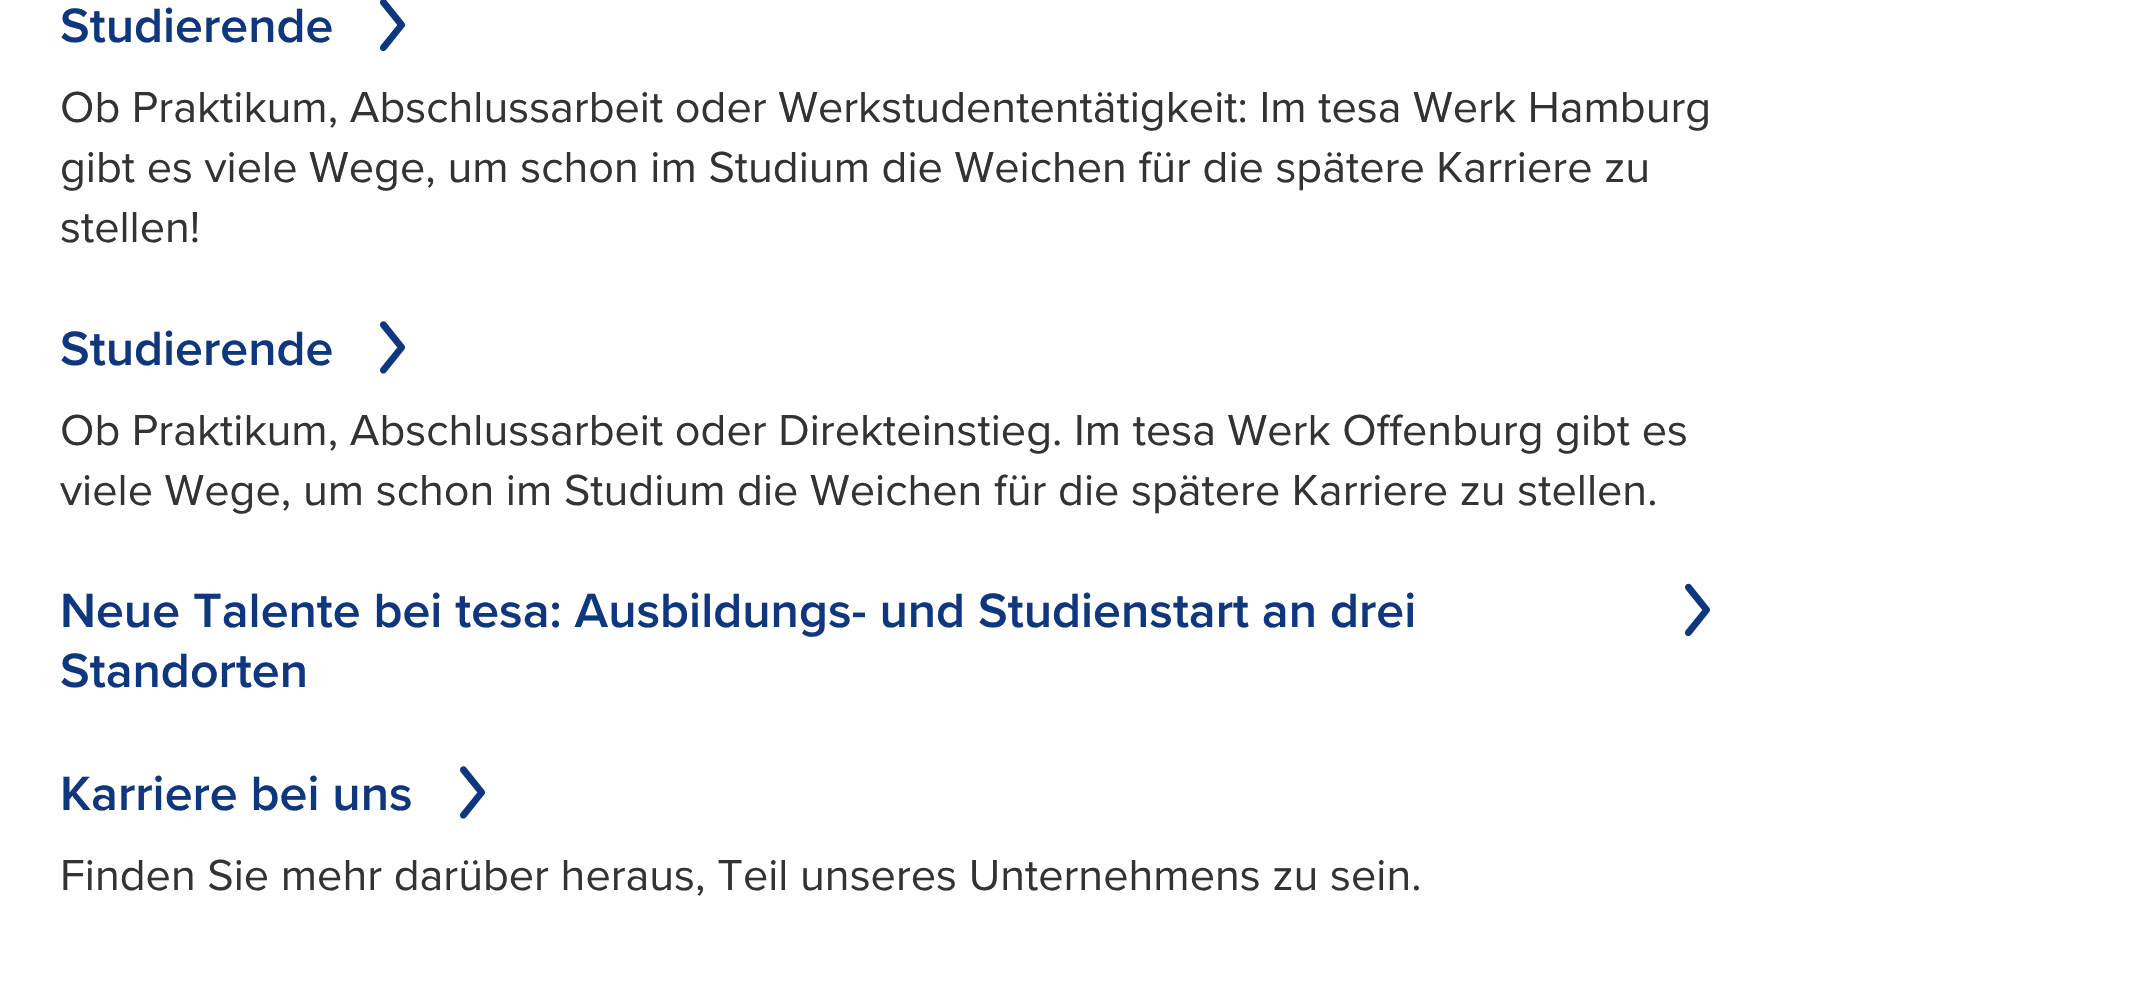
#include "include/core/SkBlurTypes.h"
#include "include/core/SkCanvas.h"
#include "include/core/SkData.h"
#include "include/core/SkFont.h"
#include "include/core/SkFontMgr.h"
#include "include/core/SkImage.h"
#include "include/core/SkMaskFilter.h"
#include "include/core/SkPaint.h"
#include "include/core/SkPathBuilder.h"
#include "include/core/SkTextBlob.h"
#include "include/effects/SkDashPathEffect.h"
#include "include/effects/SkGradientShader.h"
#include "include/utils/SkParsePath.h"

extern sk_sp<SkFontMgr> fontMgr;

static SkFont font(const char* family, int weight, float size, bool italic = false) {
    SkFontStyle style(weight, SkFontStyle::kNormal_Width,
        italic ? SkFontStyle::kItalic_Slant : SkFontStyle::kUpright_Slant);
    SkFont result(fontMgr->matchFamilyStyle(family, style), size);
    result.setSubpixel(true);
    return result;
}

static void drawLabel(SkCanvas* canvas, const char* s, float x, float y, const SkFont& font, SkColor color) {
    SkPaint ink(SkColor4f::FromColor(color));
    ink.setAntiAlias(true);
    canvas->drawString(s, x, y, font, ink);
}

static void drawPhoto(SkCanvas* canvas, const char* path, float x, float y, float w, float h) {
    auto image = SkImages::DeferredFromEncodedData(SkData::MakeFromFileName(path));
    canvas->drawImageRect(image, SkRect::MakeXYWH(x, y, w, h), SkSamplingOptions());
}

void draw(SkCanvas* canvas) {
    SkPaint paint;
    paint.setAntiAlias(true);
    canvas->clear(0xFFFFFFFF);
    SkFont font1 = font("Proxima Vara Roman", 600, 50);
    drawLabel(canvas, "Studierende", 60, 42, font1, 0xFF0F377F);
    drawPhoto(canvas, "assets/img1.png", 380, 0, 25, 51);
    SkFont font2 = font("Proxima Vara Roman", 400, 45);
    drawLabel(canvas, "Ob Praktikum, Abschlussarbeit oder Werkstudententätigkeit: Im tesa Werk Hamburg", 60, 122, font2, 0xFF333333);
    drawLabel(canvas, "gibt es viele Wege, um schon im Studium die Weichen für die spätere Karriere zu", 60, 182, font2, 0xFF333333);
    drawLabel(canvas, "stellen!", 60, 242, font2, 0xFF333333);
    drawLabel(canvas, "Studierende", 60, 365, font1, 0xFF0F377F);
    drawPhoto(canvas, "assets/img2.png", 380, 321, 25, 53);
    drawLabel(canvas, "Ob Praktikum, Abschlussarbeit oder Direkteinstieg. Im tesa Werk Offenburg gibt es", 60, 445, font2, 0xFF333333);
    drawLabel(canvas, "viele Wege, um schon im Studium die Weichen für die spätere Karriere zu stellen.", 60, 505, font2, 0xFF333333);
    drawLabel(canvas, "Neue Talente bei tesa: Ausbildungs- und Studienstart an drei", 60, 627, font1, 0xFF0F377F);
    drawPhoto(canvas, "assets/img3.png", 1685, 583, 25, 53);
    drawLabel(canvas, "Standorten", 60, 687, font1, 0xFF0F377F);
    drawLabel(canvas, "Karriere bei uns", 60, 810, font1, 0xFF0F377F);
    drawPhoto(canvas, "assets/img4.png", 460, 766, 25, 53);
    drawLabel(canvas, "Finden Sie mehr darüber heraus, Teil unseres Unternehmens zu sein.", 60, 890, font2, 0xFF333333);
}
